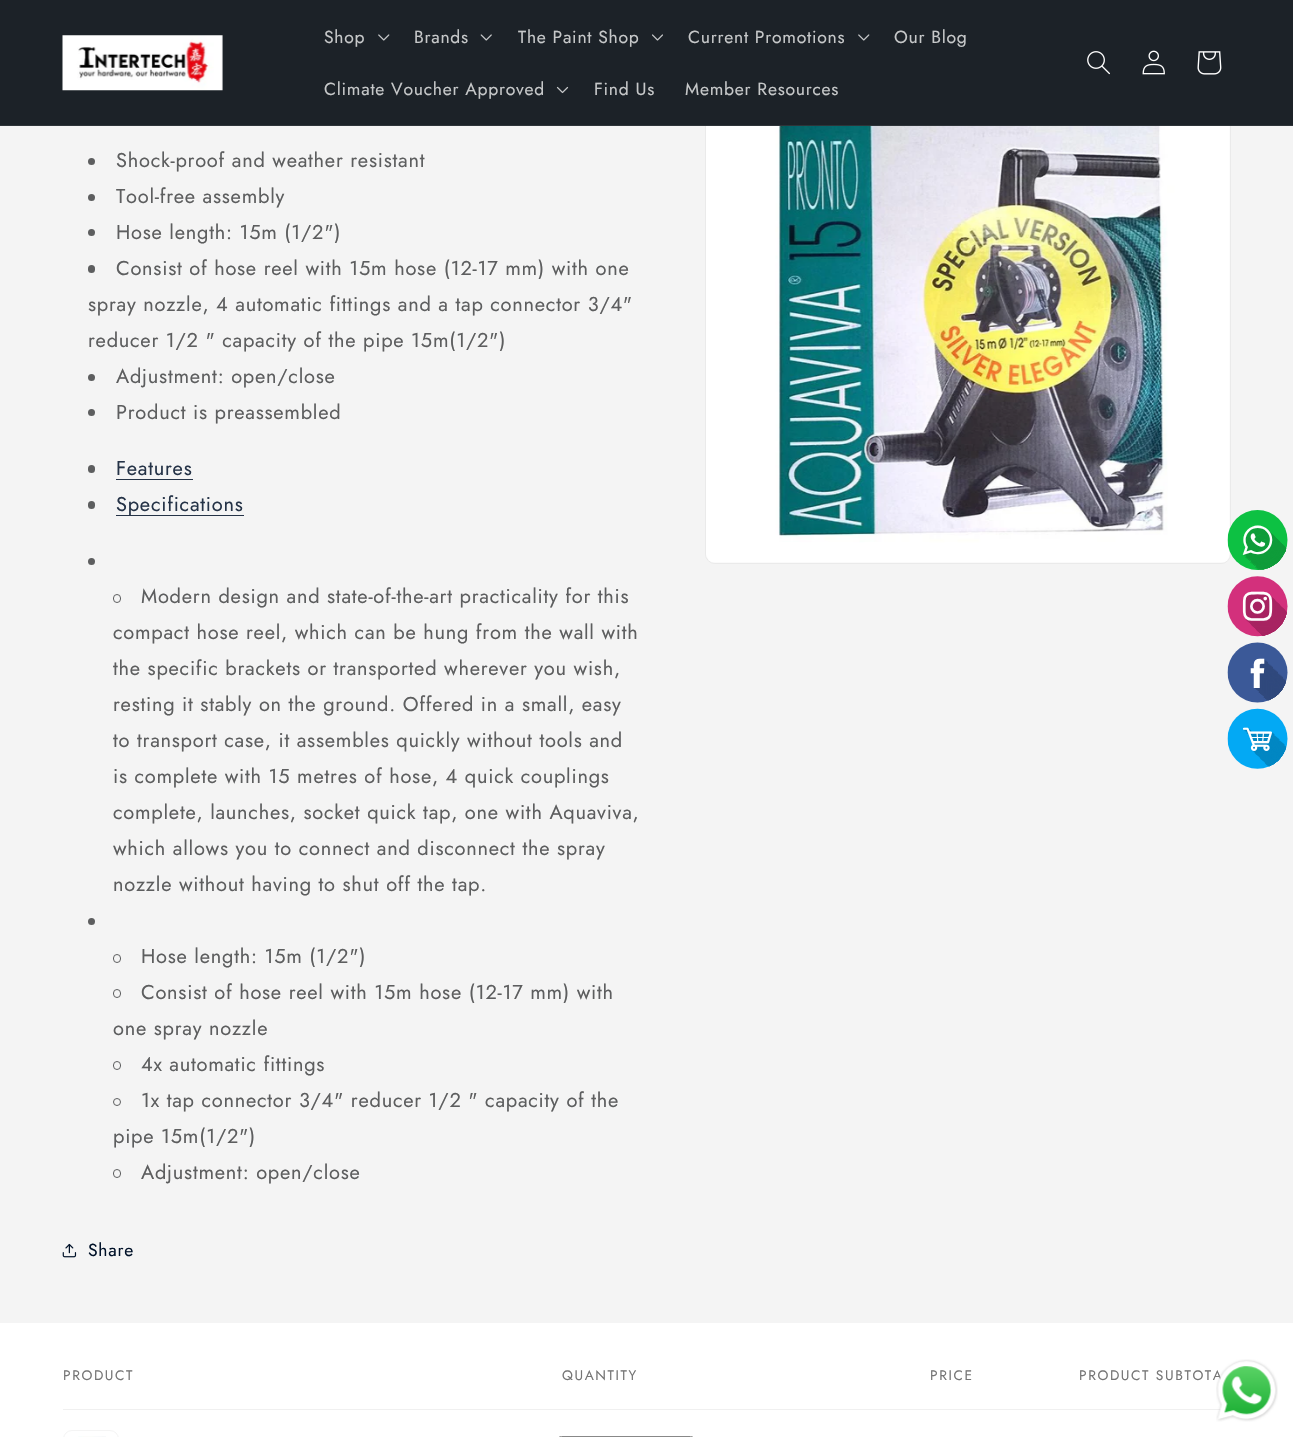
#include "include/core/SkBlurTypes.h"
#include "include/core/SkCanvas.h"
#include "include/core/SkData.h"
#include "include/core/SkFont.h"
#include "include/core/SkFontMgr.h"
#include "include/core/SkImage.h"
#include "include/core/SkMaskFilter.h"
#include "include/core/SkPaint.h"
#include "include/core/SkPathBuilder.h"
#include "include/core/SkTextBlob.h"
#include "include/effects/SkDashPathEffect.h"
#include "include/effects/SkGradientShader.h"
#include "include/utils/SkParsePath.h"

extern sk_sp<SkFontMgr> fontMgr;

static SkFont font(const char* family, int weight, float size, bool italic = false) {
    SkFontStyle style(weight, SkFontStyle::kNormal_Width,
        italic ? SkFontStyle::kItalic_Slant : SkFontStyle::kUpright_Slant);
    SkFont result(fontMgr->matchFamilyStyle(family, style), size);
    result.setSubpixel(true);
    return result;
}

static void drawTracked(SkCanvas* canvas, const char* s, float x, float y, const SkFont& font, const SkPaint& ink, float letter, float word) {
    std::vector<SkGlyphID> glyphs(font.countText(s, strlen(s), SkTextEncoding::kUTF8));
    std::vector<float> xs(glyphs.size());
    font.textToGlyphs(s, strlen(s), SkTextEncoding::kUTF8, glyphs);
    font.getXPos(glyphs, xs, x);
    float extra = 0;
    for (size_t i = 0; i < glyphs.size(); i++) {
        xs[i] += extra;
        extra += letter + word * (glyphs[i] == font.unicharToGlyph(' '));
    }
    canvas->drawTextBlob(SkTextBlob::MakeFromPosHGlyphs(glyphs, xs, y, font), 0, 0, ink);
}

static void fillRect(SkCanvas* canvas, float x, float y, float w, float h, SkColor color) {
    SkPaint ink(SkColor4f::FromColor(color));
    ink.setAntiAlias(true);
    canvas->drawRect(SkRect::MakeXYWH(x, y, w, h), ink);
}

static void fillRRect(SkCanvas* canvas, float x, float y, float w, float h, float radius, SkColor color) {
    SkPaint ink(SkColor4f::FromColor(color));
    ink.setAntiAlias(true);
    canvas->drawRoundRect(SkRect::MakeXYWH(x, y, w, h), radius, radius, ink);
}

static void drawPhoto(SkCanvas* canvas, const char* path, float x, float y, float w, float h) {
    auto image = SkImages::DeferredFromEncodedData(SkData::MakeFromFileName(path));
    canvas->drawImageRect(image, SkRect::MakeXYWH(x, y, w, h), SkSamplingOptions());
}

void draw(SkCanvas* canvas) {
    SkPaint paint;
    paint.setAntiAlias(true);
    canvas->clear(0xFFF4F4F4);
    paint.setStroke(true);
    paint.setStrokeWidth(1);
    paint.setColor(0xFFEAEAEA);
    canvas->drawRoundRect(SkRect::MakeXYWH(705.5f, 38.5f, 525, 525), 9.5f, 9.5f, paint);
    fillRect(canvas, 0, 0, 1293, 125, 0xFF1C2228);
    fillRect(canvas, 0, 125, 1293, 1, 0xFF2E3439);
    drawPhoto(canvas, "assets/img1.png", 62, 35, 161, 56);
    SkFont font1 = font("Jost", 400, 17.5f);
    paint.setStroke(false);
    paint.setColor(0xFFC6C8C9);
    drawTracked(canvas, "Shop", 324, 43, font1, paint, 0.75f, 0);
    drawPhoto(canvas, "assets/img2.png", 378, 34, 12, 7);
    drawTracked(canvas, "Brands", 414, 43, font1, paint, 0.75f, 0);
    drawPhoto(canvas, "assets/img3.png", 480, 34, 12, 7);
    drawTracked(canvas, "The Paint Shop", 518, 43, font1, paint, 0.75f, 0);
    drawPhoto(canvas, "assets/img4.png", 652, 34, 11, 7);
    drawTracked(canvas, "Current Promotions", 688, 43, font1, paint, 0.75f, 0);
    drawPhoto(canvas, "assets/img2.png", 858, 34, 12, 7);
    drawTracked(canvas, "Our Blog", 894, 43, font1, paint, 0.75f, 0);
    drawTracked(canvas, "Climate Voucher Approved", 324, 95, font1, paint, 0.75f, 0);
    drawPhoto(canvas, "assets/img5.png", 556, 86, 13, 8);
    drawTracked(canvas, "Find Us", 594, 95, font1, paint, 0.75f, 0);
    drawTracked(canvas, "Member Resources", 685, 95, font1, paint, 0.75f, 0);
    drawPhoto(canvas, "assets/img6.png", 1087, 51, 23, 24);
    drawPhoto(canvas, "assets/img7.png", 1142, 50, 23, 25);
    drawPhoto(canvas, "assets/img8.png", 1197, 51, 25, 24);
    paint.setColor(0xFF5D5E5F);
    canvas->drawCircle(91.5f, 161.5f, 3.5f, paint);
    SkFont font2 = font("Jost", 400, 20);
    drawTracked(canvas, "Shock-proof and weather resistant", 116, 167, font2, paint, 0.75f, 0);
    canvas->drawCircle(91.5f, 197.5f, 3.5f, paint);
    drawTracked(canvas, "Tool-free assembly", 116, 203, font2, paint, 0.75f, 0);
    canvas->drawCircle(91.5f, 232.5f, 3.5f, paint);
    drawTracked(canvas, "Hose length: 15m (1/2\")", 116, 239, font2, paint, 0.75f, 0);
    fillRRect(canvas, 88, 265, 7, 8, 3.5f, 0xFF5D5E5F);
    drawTracked(canvas, "Consist of hose reel with 15m hose (12-17 mm) with one", 116, 275, font2, paint, 0.75f, 0);
    drawTracked(canvas, "spray nozzle, 4 automatic fittings and a tap connector 3/4\"", 88, 311, font2, paint, 0.75f, 0);
    drawTracked(canvas, "reducer 1/2 \" capacity of the pipe 15m(1/2\")", 88, 347, font2, paint, 0.75f, 0);
    canvas->drawCircle(91.5f, 377.5f, 3.5f, paint);
    drawTracked(canvas, "Adjustment: open/close", 116, 383, font2, paint, 0.75f, 0);
    canvas->drawCircle(91.5f, 412.5f, 3.5f, paint);
    drawTracked(canvas, "Product is preassembled", 116, 419, font2, paint, 0.75f, 0);
    fillRRect(canvas, 88, 465, 7, 8, 3.5f, 0xFF5D5E5F);
    paint.setColor(0xFF253347);
    drawTracked(canvas, "Features", 116, 475, font2, paint, 0.75f, 0);
    fillRect(canvas, 116, 479, 77, 1, 0xFF253347);
    fillRRect(canvas, 88, 501, 7, 8, 3.5f, 0xFF5D5E5F);
    fillRect(canvas, 116, 515, 128, 1, 0xFF253347);
    drawTracked(canvas, "Specifications", 116, 511, font2, paint, 0.75f, 0);
    paint.setColor(0xFF5D5E5F);
    canvas->drawCircle(91.5f, 561.5f, 3.5f, paint);
    paint.setStroke(true);
    canvas->drawRoundRect(SkRect::MakeXYWH(113.5f, 594.5f, 7, 8), 3.5f, 3.5f, paint);
    paint.setStroke(false);
    drawTracked(canvas, "Modern design and state-of-the-art practicality for this", 141, 603, font2, paint, 0.75f, 0);
    drawTracked(canvas, "compact hose reel, which can be hung from the wall with", 113, 639, font2, paint, 0.75f, 0);
    drawTracked(canvas, "the specific brackets or transported wherever you wish,", 113, 675, font2, paint, 0.75f, 0);
    drawTracked(canvas, "resting it stably on the ground. Offered in a small, easy", 113, 711, font2, paint, 0.75f, 0);
    drawTracked(canvas, "to transport case, it assembles quickly without tools and", 113, 747, font2, paint, 0.75f, 0);
    drawTracked(canvas, "is complete with 15 metres of hose, 4 quick couplings", 113, 783, font2, paint, 0.75f, 0);
    drawTracked(canvas, "complete, launches, socket quick tap, one with Aquaviva,", 113, 819, font2, paint, 0.75f, 0);
    drawTracked(canvas, "which allows you to connect and disconnect the spray", 113, 855, font2, paint, 0.75f, 0);
    drawTracked(canvas, "nozzle without having to shut off the tap.", 113, 891, font2, paint, 0.75f, 0);
    canvas->drawCircle(91.5f, 921.5f, 3.5f, paint);
    paint.setStroke(true);
    canvas->drawRoundRect(SkRect::MakeXYWH(113.5f, 954.5f, 7, 8), 3.5f, 3.5f, paint);
    paint.setStroke(false);
    drawTracked(canvas, "Hose length: 15m (1/2\")", 141, 963, font2, paint, 0.75f, 0);
    paint.setStroke(true);
    canvas->drawRoundRect(SkRect::MakeXYWH(113.5f, 989.5f, 7, 8), 3.5f, 3.5f, paint);
    paint.setStroke(false);
    drawTracked(canvas, "Consist of hose reel with 15m hose (12-17 mm) with", 141, 999, font2, paint, 0.75f, 0);
    drawTracked(canvas, "one spray nozzle", 113, 1035, font2, paint, 0.75f, 0);
    paint.setStroke(true);
    canvas->drawRoundRect(SkRect::MakeXYWH(113.5f, 1061.5f, 7, 8), 3.5f, 3.5f, paint);
    paint.setStroke(false);
    drawTracked(canvas, "4x automatic fittings", 141, 1071, font2, paint, 0.75f, 0);
    paint.setStroke(true);
    canvas->drawCircle(117, 1102, 3.5f, paint);
    paint.setStroke(false);
    drawTracked(canvas, "1x tap connector 3/4\" reducer 1/2 \" capacity of the", 141, 1107, font2, paint, 0.75f, 0);
    drawTracked(canvas, "pipe 15m(1/2\")", 113, 1143, font2, paint, 0.75f, 0);
    paint.setStroke(true);
    canvas->drawRoundRect(SkRect::MakeXYWH(113.5f, 1169.5f, 7, 8), 3.5f, 3.5f, paint);
    paint.setStroke(false);
    drawTracked(canvas, "Adjustment: open/close", 141, 1179, font2, paint, 0.75f, 0);
    drawPhoto(canvas, "assets/img9.png", 62, 1243, 15, 15);
    paint.setColor(0xFF001128);
    drawTracked(canvas, "Share", 88, 1256, font1, paint, 0.75f, 0);
    drawPhoto(canvas, "assets/img10.png", 706, 126, 524, 437);
    fillRect(canvas, 0, 1323, 1293, 114, 0xFFFFFFFF);
    fillRect(canvas, 63, 1409, 1158, 1, 0xFFF0F0F0);
    SkFont font3 = font("Jost", 400, 13.75f);
    paint.setColor(0xFF757575);
    drawTracked(canvas, "PRODUCT", 63, 1380, font3, paint, 1.6f, 0);
    drawTracked(canvas, "QUANTITY", 562, 1380, font3, paint, 1.6f, 0);
    drawTracked(canvas, "PRICE", 930, 1380, font3, paint, 1.6f, 0);
    drawTracked(canvas, "PRODUCT SUBTOTA", 1079, 1380, font3, paint, 1.6f, 0);
    paint.setStroke(true);
    paint.setColor(0xFFF4F4F4);
    canvas->drawRoundRect(SkRect::MakeXYWH(63.5f, 1430.5f, 55, 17), 9.5f, 9.5f, paint);
    drawPhoto(canvas, "assets/img11.png", 78, 1436, 28, 1);
    paint.setColor(0xFF888888);
    canvas->drawRoundRect(SkRect::MakeXYWH(556.5f, 1436.5f, 139, 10), 8.5f, 8.5f, paint);
    drawPhoto(canvas, "assets/img12.png", 1227, 510, 61, 259);
    drawPhoto(canvas, "assets/img13.png", 1216, 1359, 62, 63);
}
